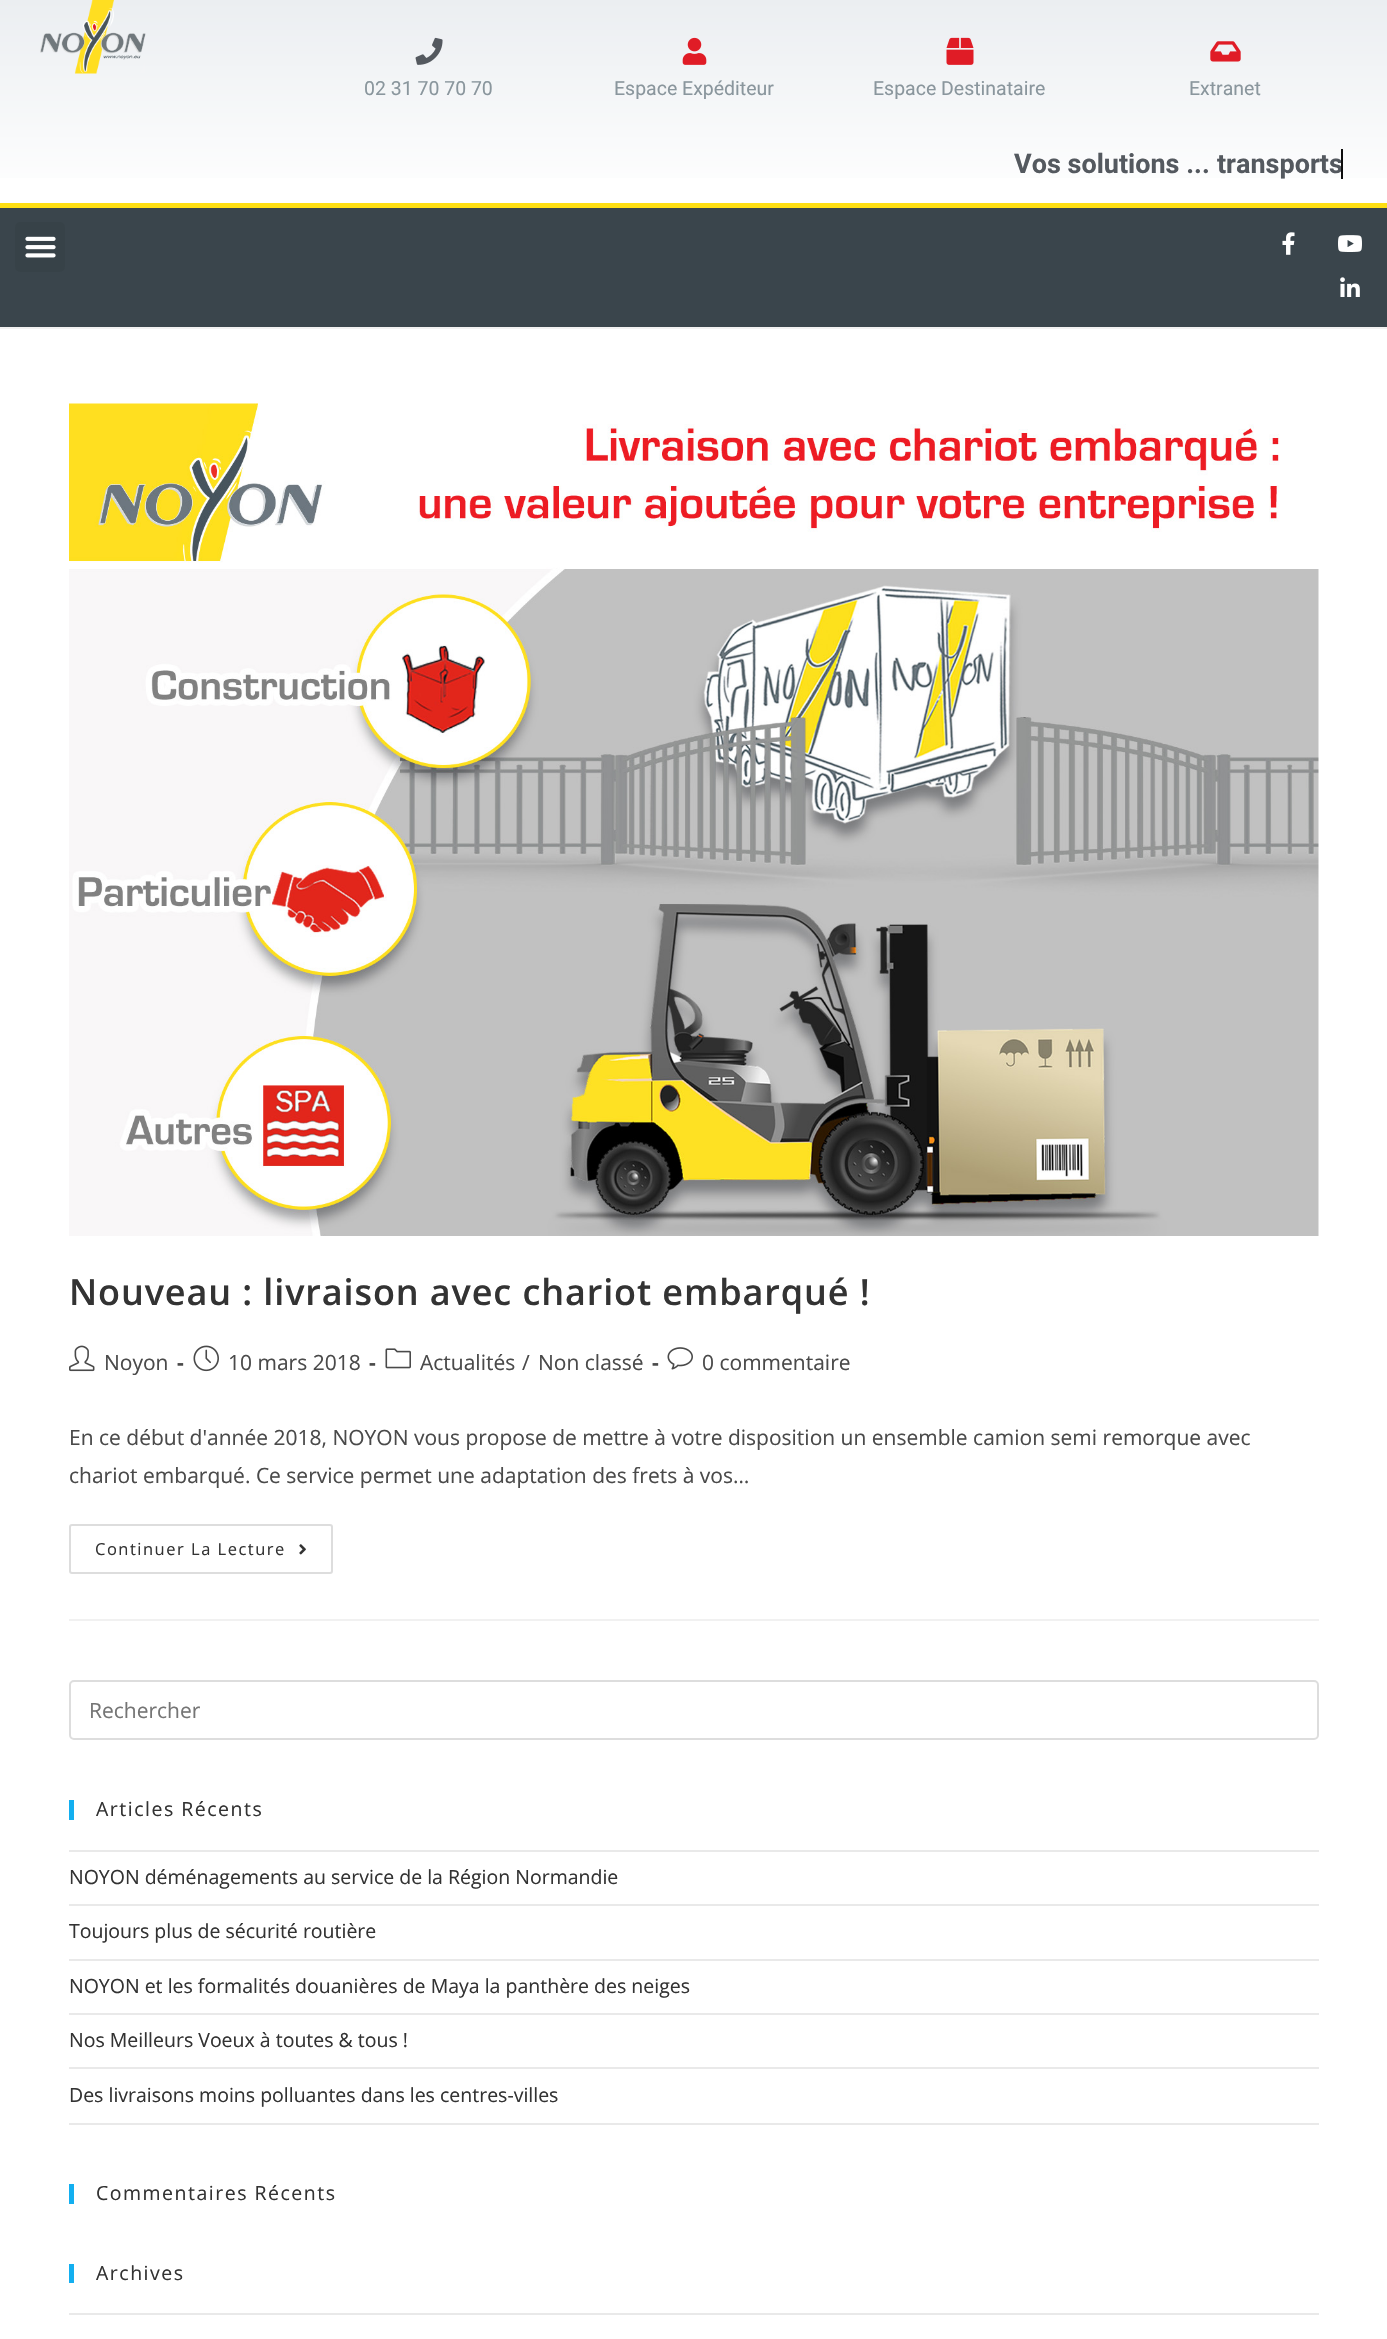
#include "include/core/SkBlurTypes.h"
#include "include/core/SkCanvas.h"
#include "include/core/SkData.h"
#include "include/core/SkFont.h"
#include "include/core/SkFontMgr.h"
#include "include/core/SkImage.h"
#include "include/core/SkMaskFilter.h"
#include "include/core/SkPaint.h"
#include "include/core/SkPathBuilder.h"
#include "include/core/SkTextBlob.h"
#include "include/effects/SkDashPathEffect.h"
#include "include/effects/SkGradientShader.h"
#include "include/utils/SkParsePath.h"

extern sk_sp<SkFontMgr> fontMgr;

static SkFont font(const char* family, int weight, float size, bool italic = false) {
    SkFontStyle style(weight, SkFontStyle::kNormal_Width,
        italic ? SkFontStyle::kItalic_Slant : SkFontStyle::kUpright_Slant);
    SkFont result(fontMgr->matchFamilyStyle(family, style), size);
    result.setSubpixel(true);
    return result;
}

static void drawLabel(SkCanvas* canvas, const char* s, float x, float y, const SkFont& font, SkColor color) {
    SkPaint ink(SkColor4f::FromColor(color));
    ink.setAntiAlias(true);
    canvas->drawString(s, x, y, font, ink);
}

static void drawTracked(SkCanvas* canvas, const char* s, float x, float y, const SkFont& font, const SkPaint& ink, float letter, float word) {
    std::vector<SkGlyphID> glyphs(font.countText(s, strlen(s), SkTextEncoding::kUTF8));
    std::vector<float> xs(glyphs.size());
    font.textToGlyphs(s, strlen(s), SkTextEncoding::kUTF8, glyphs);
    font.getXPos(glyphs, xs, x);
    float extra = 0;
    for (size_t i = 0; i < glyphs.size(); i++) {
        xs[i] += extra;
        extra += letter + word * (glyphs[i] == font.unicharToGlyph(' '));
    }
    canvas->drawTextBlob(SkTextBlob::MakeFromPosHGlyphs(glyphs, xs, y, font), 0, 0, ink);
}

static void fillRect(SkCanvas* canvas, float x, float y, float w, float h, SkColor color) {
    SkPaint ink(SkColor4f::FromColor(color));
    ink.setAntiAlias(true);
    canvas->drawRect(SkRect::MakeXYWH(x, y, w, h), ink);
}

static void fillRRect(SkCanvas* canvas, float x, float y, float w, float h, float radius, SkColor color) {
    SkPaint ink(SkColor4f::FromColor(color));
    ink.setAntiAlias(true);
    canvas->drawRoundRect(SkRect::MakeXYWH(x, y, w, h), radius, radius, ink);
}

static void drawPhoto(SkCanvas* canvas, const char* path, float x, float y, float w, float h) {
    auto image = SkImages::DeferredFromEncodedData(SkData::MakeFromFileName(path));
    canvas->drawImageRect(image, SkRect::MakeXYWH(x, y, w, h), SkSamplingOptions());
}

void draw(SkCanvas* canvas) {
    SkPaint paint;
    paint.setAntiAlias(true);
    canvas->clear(0xFFFFFFFF);
    fillRect(canvas, 0, 327, 1387, 2, 0xFFF1F1F1);
    {
        const SkColor colors[] = {0xFFEBEEF1, 0xFFFFFFFF};
        const float stops[] = {0, 1};
        const SkPoint ends[] = {{694, 0}, {694, 203}};
        paint.setShader(SkGradientShader::MakeLinear(ends, colors, stops, 2, SkTileMode::kClamp));
        paint.setAlpha(255);
    }
    canvas->drawRect(SkRect::MakeXYWH(0, 0, 1387, 178), paint);
    drawPhoto(canvas, "assets/img1.png", 40, 0, 106, 74);
    drawPhoto(canvas, "assets/img2.png", 415, 37, 28, 28);
    SkFont font1 = font("Roboto", 400, 19.5f);
    drawLabel(canvas, "02 31 70 70 70", 364, 95, font1, 0xFF8A969D);
    drawPhoto(canvas, "assets/img3.png", 682, 37, 25, 28);
    drawLabel(canvas, "Espace Expéditeur", 614, 95, font1, 0xFF8A969D);
    drawPhoto(canvas, "assets/img4.png", 946, 37, 28, 28);
    drawLabel(canvas, "Espace Destinataire", 873, 95, font1, 0xFF8A969D);
    drawPhoto(canvas, "assets/img5.png", 1210, 41, 31, 21);
    drawLabel(canvas, "Extranet", 1189, 95, font1, 0xFF8A969D);
    SkFont font2 = font("Roboto", 700, 27);
    drawLabel(canvas, "Vos solutions ...", 1014, 173, font2, 0xFF54595F);
    canvas->save();
    canvas->clipRect(SkRect::MakeXYWH(1217, 147, 126, 33));
    drawLabel(canvas, "transports", 1217, 173, font2, 0xFF54595F);
    canvas->restore();
    fillRect(canvas, 1341, 149, 2, 30, 0xFF0D0D0D);
    fillRect(canvas, 0, 208, 1387, 119, 0xFF3A454C);
    fillRect(canvas, 0, 203, 1387, 5, 0xFFFFDF12);
    fillRRect(canvas, 15, 222, 50, 50, 5, 0xFF374248);
    drawPhoto(canvas, "assets/img6.png", 25, 236, 31, 22);
    drawPhoto(canvas, "assets/img7.png", 1282, 232, 13, 23);
    drawPhoto(canvas, "assets/img8.png", 1338, 235, 24, 17);
    drawPhoto(canvas, "assets/img9.png", 1340, 277, 20, 20);
    fillRect(canvas, 69, 1619, 1250, 2, 0xFFF1F1F1);
    drawPhoto(canvas, "assets/img10.png", 69, 403, 1250, 833);
    SkFont font3 = font("Open Sans", 600, 36);
    paint.setShader(nullptr);
    paint.setColor(0xFF333333);
    drawTracked(canvas, "Nouveau : livraison avec chariot embarqué !", 69, 1305, font3, paint, 0.9f, 0);
    drawPhoto(canvas, "assets/img11.png", 69, 1345, 26, 27);
    SkFont font4 = font("Open Sans", 400, 21);
    drawLabel(canvas, "Noyon", 104, 1370, font4, 0xFF4A4A4A);
    SkFont font5 = font("Open Sans", 700, 21);
    drawLabel(canvas, "-", 177, 1370, font5, 0xFF4A4A4A);
    drawPhoto(canvas, "assets/img12.png", 193, 1345, 26, 27);
    drawLabel(canvas, "10 mars 2018", 228, 1370, font4, 0xFF4A4A4A);
    drawLabel(canvas, "-", 369, 1370, font5, 0xFF4A4A4A);
    drawPhoto(canvas, "assets/img13.png", 385, 1348, 26, 21);
    drawLabel(canvas, "Actualités", 420, 1370, font4, 0xFF4A4A4A);
    drawLabel(canvas, "/", 522, 1370, font4, 0xFF4A4A4A);
    drawLabel(canvas, "Non classé", 538, 1370, font4, 0xFF4A4A4A);
    drawLabel(canvas, "-", 652, 1370, font5, 0xFF4A4A4A);
    drawPhoto(canvas, "assets/img14.png", 667, 1347, 26, 23);
    drawLabel(canvas, "0 commentaire", 702, 1370, font4, 0xFF4A4A4A);
    drawLabel(canvas, "En ce début d'année 2018, NOYON vous propose de mettre à votre disposition un ensemble camion semi remorque avec", 69, 1445, font4, 0xFF4A4A4A);
    drawLabel(canvas, "chariot embarqué. Ce service permet une adaptation des frets à vos…", 69, 1483, font4, 0xFF4A4A4A);
    paint.setStroke(true);
    paint.setStrokeWidth(2);
    paint.setColor(0xFFDDDDDD);
    canvas->drawRoundRect(SkRect::MakeXYWH(70, 1525, 262, 48), 2, 2, paint);
    SkFont font6 = font("Open Sans", 400, 16.5f);
    paint.setStroke(false);
    paint.setColor(0xFF333333);
    drawTracked(canvas, "Continuer La Lecture", 95, 1555, font6, paint, 1.5f, 0);
    drawPhoto(canvas, "assets/img15.png", 299, 1544, 7, 11);
    paint.setStroke(true);
    paint.setColor(0xFFDDDDDD);
    canvas->drawRoundRect(SkRect::MakeXYWH(70, 1681, 1248, 58), 4, 4, paint);
    drawLabel(canvas, "Rechercher", 89, 1718, font4, 0xFF757575);
    fillRect(canvas, 69, 1800, 5, 20, 0xFF13AFF0);
    SkFont font7 = font("Open Sans", 400, 19.5f);
    paint.setStroke(false);
    paint.setColor(0xFF333333);
    drawTracked(canvas, "Articles Récents", 96, 1816, font7, paint, 1.5f, 0);
    fillRect(canvas, 69, 1850, 1250, 2, 0xFFE9E9E9);
    fillRect(canvas, 69, 1904, 1250, 2, 0xFFE9E9E9);
    drawLabel(canvas, "NOYON déménagements au service de la Région Normandie", 69, 1884, font7, 0xFF333333);
    fillRect(canvas, 69, 1959, 1250, 2, 0xFFE9E9E9);
    drawLabel(canvas, "Toujours plus de sécurité routière", 69, 1938, font7, 0xFF333333);
    fillRect(canvas, 69, 2013, 1250, 2, 0xFFE9E9E9);
    drawLabel(canvas, "NOYON et les formalités douanières de Maya la panthère des neiges", 69, 1993, font7, 0xFF333333);
    fillRect(canvas, 69, 2067, 1250, 2, 0xFFE9E9E9);
    drawLabel(canvas, "Nos Meilleurs Voeux à toutes & tous !", 69, 2047, font7, 0xFF333333);
    fillRect(canvas, 69, 2123, 1250, 2, 0xFFE9E9E9);
    drawLabel(canvas, "Des livraisons moins polluantes dans les centres-villes", 69, 2102, font7, 0xFF333333);
    fillRect(canvas, 69, 2184, 5, 20, 0xFF13AFF0);
    drawTracked(canvas, "Commentaires Récents", 96, 2200, font7, paint, 1.5f, 0);
    fillRect(canvas, 69, 2264, 5, 19, 0xFF13AFF0);
    drawTracked(canvas, "Archives", 96, 2280, font7, paint, 1.5f, 0);
    fillRect(canvas, 69, 2313, 1250, 2, 0xFFE9E9E9);
}
